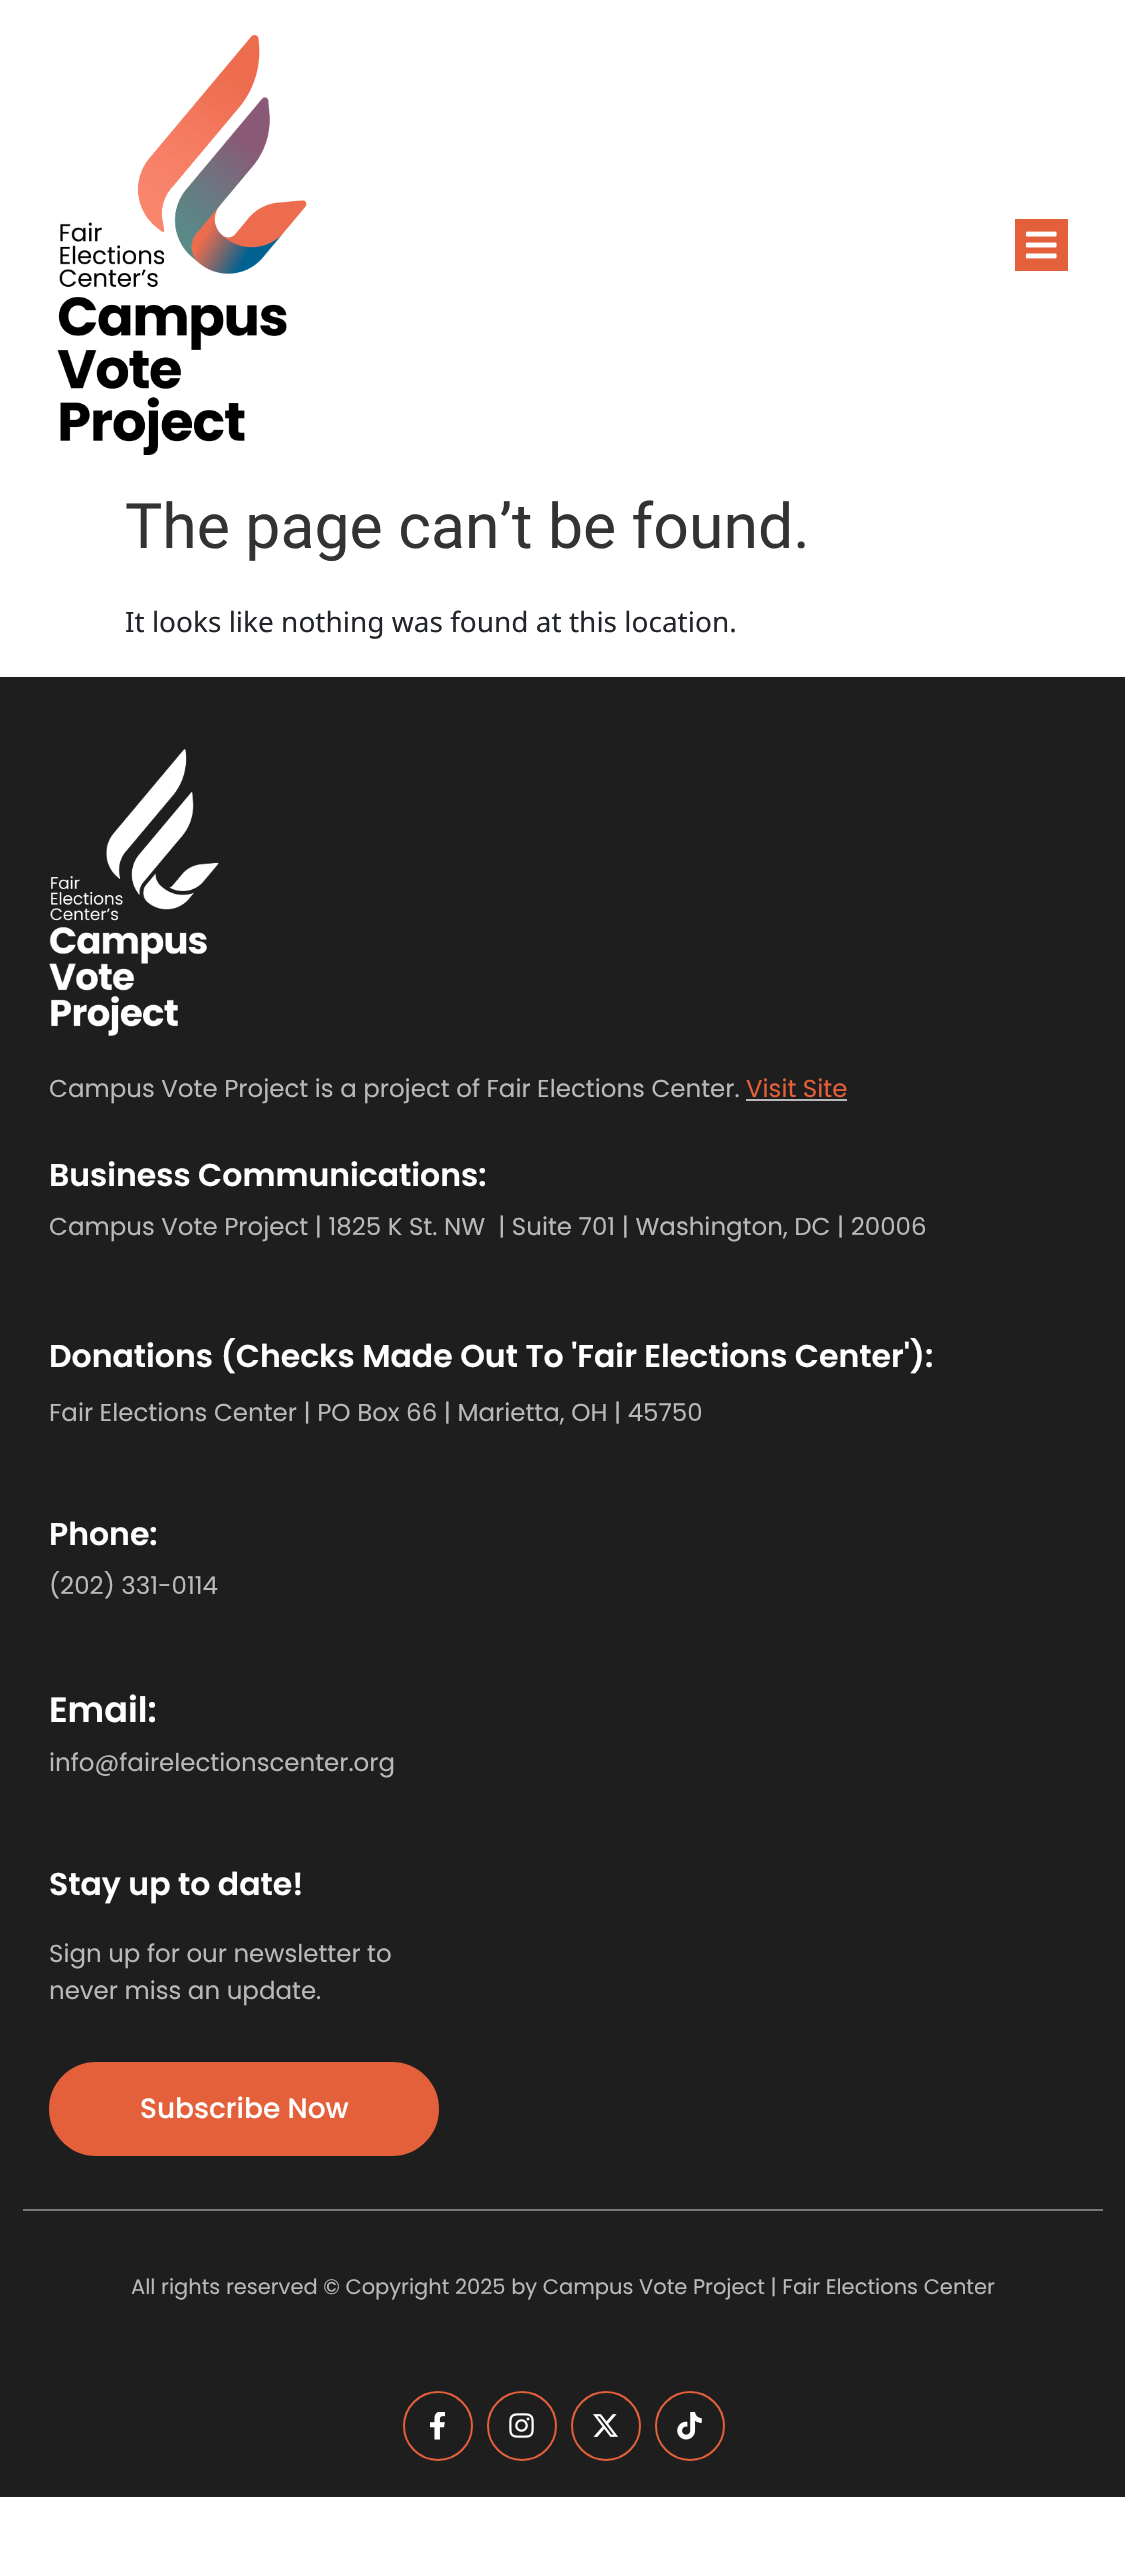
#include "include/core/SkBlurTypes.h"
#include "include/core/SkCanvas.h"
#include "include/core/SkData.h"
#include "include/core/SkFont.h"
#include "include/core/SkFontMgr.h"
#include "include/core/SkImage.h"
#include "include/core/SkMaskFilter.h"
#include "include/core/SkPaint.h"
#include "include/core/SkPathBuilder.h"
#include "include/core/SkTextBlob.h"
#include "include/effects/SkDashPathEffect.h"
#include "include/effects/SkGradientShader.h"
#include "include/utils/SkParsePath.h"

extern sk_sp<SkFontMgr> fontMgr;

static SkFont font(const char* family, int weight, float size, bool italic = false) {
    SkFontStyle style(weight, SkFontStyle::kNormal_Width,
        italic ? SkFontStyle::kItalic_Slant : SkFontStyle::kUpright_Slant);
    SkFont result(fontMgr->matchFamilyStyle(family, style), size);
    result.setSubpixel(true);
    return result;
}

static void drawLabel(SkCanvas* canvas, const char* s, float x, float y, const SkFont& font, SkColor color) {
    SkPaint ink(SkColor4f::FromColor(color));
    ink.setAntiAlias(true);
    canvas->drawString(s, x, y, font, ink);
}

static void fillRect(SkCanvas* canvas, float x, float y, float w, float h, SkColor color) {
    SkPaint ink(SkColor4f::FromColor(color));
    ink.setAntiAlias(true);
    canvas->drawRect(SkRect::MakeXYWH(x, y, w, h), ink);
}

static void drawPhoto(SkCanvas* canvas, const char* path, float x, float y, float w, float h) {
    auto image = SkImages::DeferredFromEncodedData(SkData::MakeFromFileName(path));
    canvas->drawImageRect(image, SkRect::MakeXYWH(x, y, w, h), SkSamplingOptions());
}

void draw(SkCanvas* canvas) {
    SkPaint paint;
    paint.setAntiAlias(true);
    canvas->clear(0xFFFFFFFF);
    drawPhoto(canvas, "assets/img1.png", 57, 35, 250, 420);
    fillRect(canvas, 1015, 219, 53, 52, 0xFFE3603A);
    drawPhoto(canvas, "assets/img2.png", 1025, 231, 32, 28);
    SkFont font1 = font("Roboto", 400, 62.5f);
    drawLabel(canvas, "The page can’t be found.", 125, 548, font1, 0xFF333333);
    SkFont font2 = font("Noto Sans", 400, 28);
    drawLabel(canvas, "It looks like nothing was found at this location.", 125, 632, font2, 0xFF212529);
    fillRect(canvas, 0, 677, 1125, 1820, 0xFF1E1E1E);
    drawPhoto(canvas, "assets/img3.png", 49, 749, 170, 287);
    SkFont font3 = font("Poppins", 400, 24.5f);
    drawLabel(canvas, "Campus Vote Project is a project of Fair Elections Center.", 49, 1097, font3, 0xFFB9B9B9);
    drawLabel(canvas, "Visit Site", 746, 1097, font3, 0xFFE3603A);
    fillRect(canvas, 746, 1099, 101, 2, 0xFFB9B9B9);
    SkFont font4 = font("Poppins", 600, 31.5f);
    drawLabel(canvas, "Business Communications:", 49, 1186, font4, 0xFFFFFFFF);
    drawLabel(canvas, "Campus Vote Project | 1825 K St. NW  | Suite 701 | Washington, DC | 20006", 49, 1235, font3, 0xFFB9B9B9);
    drawLabel(canvas, "Donations (Checks Made Out To 'Fair Elections Center'):", 49, 1367, font4, 0xFFFFFFFF);
    drawLabel(canvas, "Fair Elections Center | PO Box 66 | Marietta, OH | 45750", 49, 1421, font3, 0xFFB9B9B9);
    drawLabel(canvas, "Phone:", 49, 1545, font4, 0xFFFFFFFF);
    drawLabel(canvas, "(202) 331-0114", 49, 1594, font3, 0xFFB9B9B9);
    SkFont font5 = font("Poppins", 600, 35);
    drawLabel(canvas, "Email:", 49, 1722, font5, 0xFFFFFFFF);
    drawLabel(canvas, "info@fairelectionscenter.org", 49, 1771, font3, 0xFFB9B9B9);
    drawLabel(canvas, "Stay up to date!", 49, 1895, font4, 0xFFFFFFFF);
    drawLabel(canvas, "Sign up for our newsletter to", 49, 1962, font3, 0xFFB9B9B9);
    drawLabel(canvas, "never miss an update.", 49, 1999, font3, 0xFFB9B9B9);
    paint.setColor(0xFFE3603A);
    canvas->drawRoundRect(SkRect::MakeXYWH(50, 2063, 388, 92), 46, 46, paint);
    paint.setStroke(true);
    paint.setStrokeWidth(2);
    canvas->drawRoundRect(SkRect::MakeXYWH(50, 2063, 388, 92), 46, 46, paint);
    SkFont font6 = font("Poppins", 500, 28);
    drawLabel(canvas, "Subscribe Now", 140, 2118, font6, 0xFFFFFFFF);
    fillRect(canvas, 23, 2209, 1080, 2, 0xFF787878);
    SkFont font7 = font("Poppins", 400, 21);
    drawLabel(canvas, "All rights reserved © Copyright 2025 by Campus Vote Project | Fair Elections Center", 131, 2294, font7, 0xFFB9B9B9);
    canvas->drawCircle(438, 2426, 34, paint);
    drawPhoto(canvas, "assets/img4.png", 430, 2412, 15, 28);
    canvas->drawCircle(522, 2426, 34, paint);
    drawPhoto(canvas, "assets/img5.png", 509, 2413, 25, 25);
    canvas->drawCircle(606, 2426, 34, paint);
    drawPhoto(canvas, "assets/img6.png", 593, 2414, 25, 23);
    canvas->drawCircle(690, 2426, 34, paint);
    drawPhoto(canvas, "assets/img7.png", 677, 2412, 25, 28);
}
